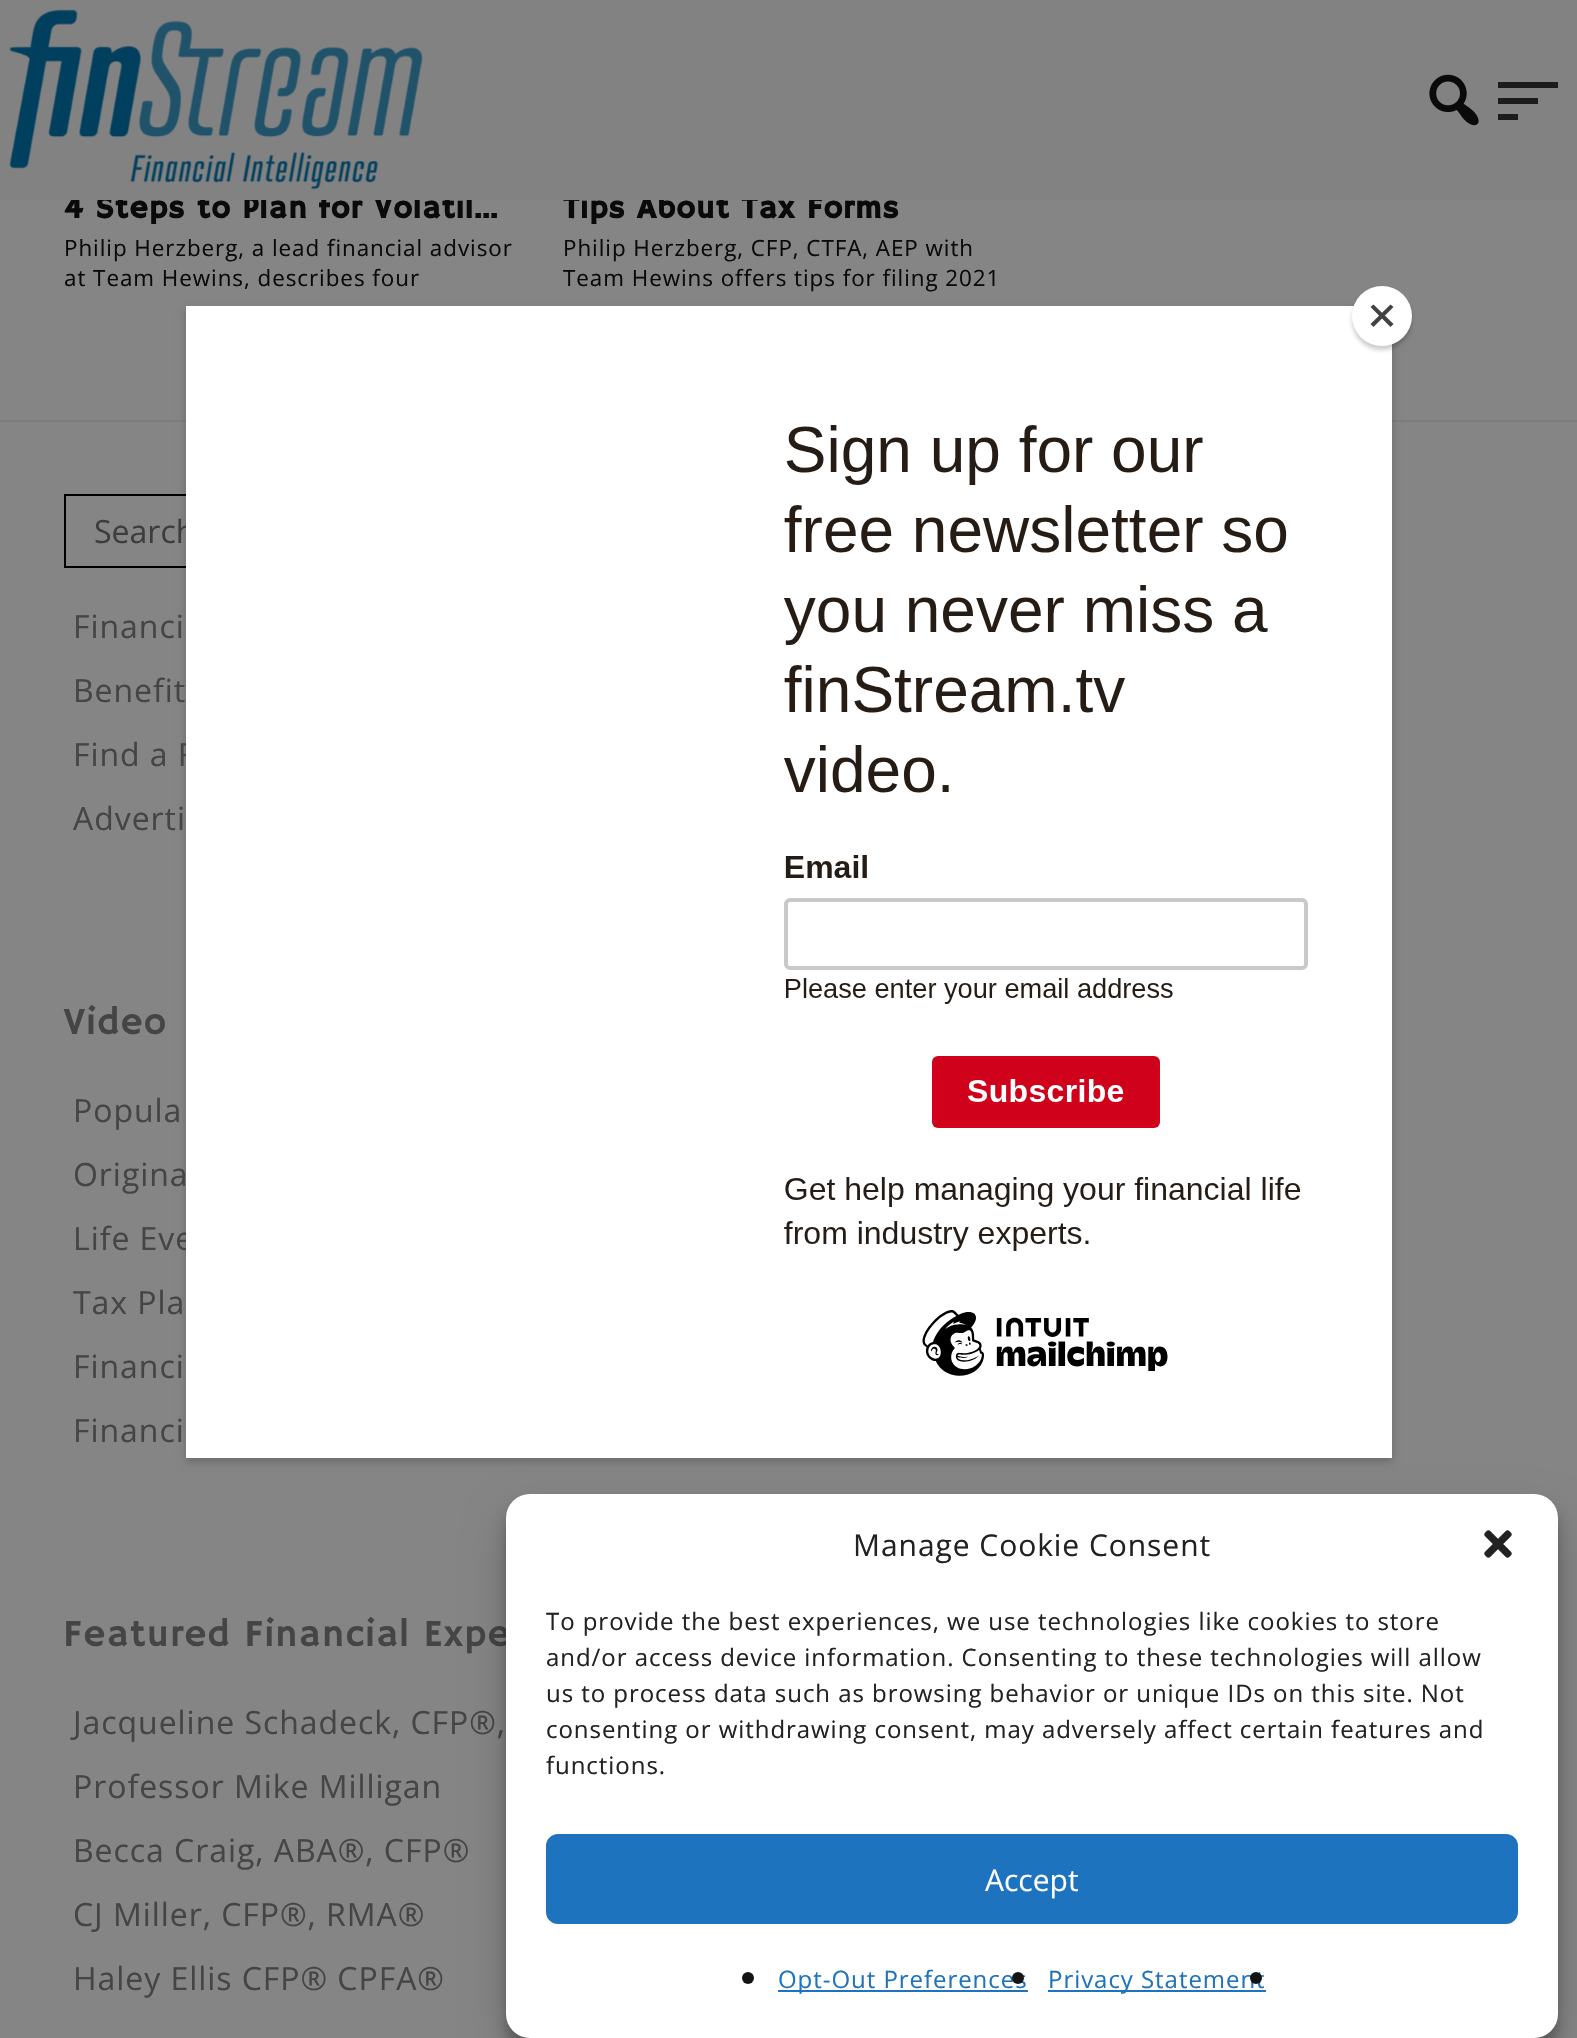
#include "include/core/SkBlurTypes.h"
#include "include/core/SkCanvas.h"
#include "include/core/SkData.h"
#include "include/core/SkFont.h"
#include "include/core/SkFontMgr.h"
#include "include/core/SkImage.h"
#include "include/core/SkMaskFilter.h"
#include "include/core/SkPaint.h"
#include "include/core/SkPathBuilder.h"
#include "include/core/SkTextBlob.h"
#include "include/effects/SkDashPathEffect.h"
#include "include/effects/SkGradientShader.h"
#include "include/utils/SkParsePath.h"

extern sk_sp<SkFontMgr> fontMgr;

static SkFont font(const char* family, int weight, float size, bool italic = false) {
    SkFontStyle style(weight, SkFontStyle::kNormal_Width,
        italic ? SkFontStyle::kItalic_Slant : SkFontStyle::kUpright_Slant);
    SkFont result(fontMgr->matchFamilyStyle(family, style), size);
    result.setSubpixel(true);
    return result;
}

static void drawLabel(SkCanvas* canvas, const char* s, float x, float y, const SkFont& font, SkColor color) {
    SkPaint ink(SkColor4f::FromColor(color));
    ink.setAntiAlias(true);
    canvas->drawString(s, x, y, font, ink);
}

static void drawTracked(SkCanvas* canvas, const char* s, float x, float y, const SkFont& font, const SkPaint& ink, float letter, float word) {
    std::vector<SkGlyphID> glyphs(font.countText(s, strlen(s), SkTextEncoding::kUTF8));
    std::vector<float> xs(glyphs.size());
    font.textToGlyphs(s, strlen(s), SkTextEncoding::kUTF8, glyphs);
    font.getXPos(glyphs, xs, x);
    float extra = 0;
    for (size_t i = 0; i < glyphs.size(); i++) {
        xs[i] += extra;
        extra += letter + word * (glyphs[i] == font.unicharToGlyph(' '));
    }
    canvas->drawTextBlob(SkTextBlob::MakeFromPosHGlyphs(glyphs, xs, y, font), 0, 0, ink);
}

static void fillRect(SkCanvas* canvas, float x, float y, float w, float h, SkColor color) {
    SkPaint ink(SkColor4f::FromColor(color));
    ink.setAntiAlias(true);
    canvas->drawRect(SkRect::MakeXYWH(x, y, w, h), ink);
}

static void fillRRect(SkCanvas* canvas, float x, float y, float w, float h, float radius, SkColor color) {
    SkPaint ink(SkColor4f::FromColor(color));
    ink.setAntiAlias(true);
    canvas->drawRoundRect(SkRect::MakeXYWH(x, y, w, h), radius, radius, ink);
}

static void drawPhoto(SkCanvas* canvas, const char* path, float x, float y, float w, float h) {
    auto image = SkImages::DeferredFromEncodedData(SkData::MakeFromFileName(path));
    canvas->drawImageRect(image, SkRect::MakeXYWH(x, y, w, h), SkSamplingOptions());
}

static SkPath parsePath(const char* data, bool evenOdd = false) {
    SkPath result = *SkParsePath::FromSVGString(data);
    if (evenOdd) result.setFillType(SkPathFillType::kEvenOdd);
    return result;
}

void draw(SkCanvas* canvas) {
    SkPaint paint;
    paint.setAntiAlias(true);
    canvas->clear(0xFF858585);
    SkFont font1 = font("Hammersmith One", 700, 32);
    paint.setColor(0xFF0A0A0A);
    drawTracked(canvas, "4 Steps to Plan for Volatil…", 64, 218, font1, paint, 0.95f, 0);
    drawTracked(canvas, "Tips About Tax Forms", 563, 218, font1, paint, 0.95f, 0);
    fillRect(canvas, 0, 0, 1577, 200, 0xFF828282);
    drawPhoto(canvas, "assets/img1.png", 9, 9, 414, 181);
    drawPhoto(canvas, "assets/img2.png", 1429, 74, 50, 52);
    fillRect(canvas, 1498, 98, 40, 6, 0xFF1C1C1C);
    fillRect(canvas, 1498, 82, 60, 6, 0xFF1C1C1C);
    fillRect(canvas, 1498, 114, 20, 6, 0xFF1C1C1C);
    SkFont font2 = font("Open Sans", 400, 22.4f);
    drawTracked(canvas, "Philip Herzberg, a lead financial advisor", 64, 256, font2, paint, 0.95f, 0);
    drawTracked(canvas, "at Team Hewins, describes four", 64, 286, font2, paint, 0.95f, 0);
    drawTracked(canvas, "Philip Herzberg, CFP, CTFA, AEP with", 563, 256, font2, paint, 0.95f, 0);
    drawTracked(canvas, "Team Hewins offers tips for filing 2021", 563, 286, font2, paint, 0.95f, 0);
    fillRect(canvas, 0, 420, 1577, 2, 0xFF7C7C7C);
    paint.setStroke(true);
    paint.setStrokeWidth(2);
    paint.setColor(0xFF000000);
    canvas->drawRect(SkRect::MakeXYWH(65, 495, 1076, 72), paint);
    paint.setStroke(false);
    paint.setColor(0x33000000);
    paint.setMaskFilter(SkMaskFilter::MakeBlur(kNormal_SkBlurStyle, 4));
    canvas->drawRect(SkRect::MakeXYWH(186, 310, 1206, 1152), paint);
    paint.setMaskFilter(nullptr);
    SkFont font3 = font("Open Sans", 400, 32);
    drawLabel(canvas, "Search", 94, 543, font3, 0xFF3D3D3D);
    paint.setColor(0xFF454545);
    drawTracked(canvas, "Find a F", 73, 766, font3, paint, 0.95f, 0);
    drawTracked(canvas, "Life Eve", 73, 1250, font3, paint, 0.95f, 0);
    drawPhoto(canvas, "assets/img3.png", 186, 306, 1206, 1152);
    paint.setColor(0x33000000);
    paint.setMaskFilter(SkMaskFilter::MakeBlur(kNormal_SkBlurStyle, 2));
    canvas->drawRoundRect(SkRect::MakeXYWH(1352, 290, 60, 60), 30, 30, paint);
    paint.setMaskFilter(nullptr);
    paint.setColor(0xFFFFFFFF);
    canvas->drawCircle(1382, 316, 30, paint);
    paint.setColor(0xFF414141);
    canvas->drawPath(parsePath("M1390.5 304.5L1393.5 307L1373.5 327L1370.5 324Z"), paint);
    canvas->drawPath(parsePath("M1370.5 307L1373.5 304.5L1393.5 324L1390.5 327Z"), paint);
    paint.setColor(0xFF454545);
    drawTracked(canvas, "Financi", 73, 638, font3, paint, 0.95f, 0);
    drawTracked(canvas, "Benefit", 73, 702, font3, paint, 0.95f, 0);
    drawTracked(canvas, "Adverti", 73, 830, font3, paint, 0.95f, 0);
    SkFont font4 = font("Hammersmith One", 400, 38.4f);
    drawTracked(canvas, "Video", 63, 1034, font4, paint, 0.95f, 0);
    drawTracked(canvas, "Popula", 73, 1122, font3, paint, 0.95f, 0);
    drawTracked(canvas, "Origina", 73, 1186, font3, paint, 0.95f, 0);
    drawTracked(canvas, "Tax Pla", 73, 1314, font3, paint, 0.95f, 0);
    drawTracked(canvas, "Financi", 73, 1378, font3, paint, 0.95f, 0);
    drawTracked(canvas, "Financi", 73, 1442, font3, paint, 0.95f, 0);
    drawTracked(canvas, "Featured Financial Expe", 63, 1646, font4, paint, 0.95f, 0);
    drawTracked(canvas, "Jacqueline Schadeck, CFP®,", 73, 1734, font3, paint, 0.95f, 0);
    drawTracked(canvas, "Professor Mike Milligan", 73, 1798, font3, paint, 0.95f, 0);
    drawTracked(canvas, "Becca Craig, ABA®, CFP®", 73, 1862, font3, paint, 0.95f, 0);
    drawTracked(canvas, "CJ Miller, CFP®, RMA®", 73, 1926, font3, paint, 0.95f, 0);
    drawTracked(canvas, "Haley Ellis CFP® CPFA®", 73, 1990, font3, paint, 0.95f, 0);
    paint.setColor(0x3B000000);
    paint.setMaskFilter(SkMaskFilter::MakeBlur(kNormal_SkBlurStyle, 6));
    canvas->drawRoundRect(SkRect::MakeXYWH(506, 1506, 1052, 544), 24, 24, paint);
    paint.setMaskFilter(nullptr);
    paint.setColor(0x30000000);
    paint.setMaskFilter(SkMaskFilter::MakeBlur(kNormal_SkBlurStyle, 20));
    canvas->drawRoundRect(SkRect::MakeXYWH(506, 1514, 1052, 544), 24, 24, paint);
    paint.setMaskFilter(nullptr);
    fillRRect(canvas, 506, 1494, 1052, 544, 24, 0xFFFFFFFF);
    SkFont font5 = font("Open Sans", 400, 30);
    paint.setColor(0xFF222222);
    drawTracked(canvas, "Manage Cookie Consent", 853, 1556, font5, paint, 0.95f, 0);
    drawPhoto(canvas, "assets/img4.png", 1484, 1530, 28, 28);
    SkFont font6 = font("Open Sans", 400, 24);
    drawTracked(canvas, "To provide the best experiences, we use technologies like cookies to store", 546, 1630, font6, paint, 0.95f, 0);
    drawTracked(canvas, "and/or access device information. Consenting to these technologies will allow", 546, 1666, font6, paint, 0.95f, 0);
    drawTracked(canvas, "us to process data such as browsing behavior or unique IDs on this site. Not", 546, 1702, font6, paint, 0.95f, 0);
    drawTracked(canvas, "consenting or withdrawing consent, may adversely affect certain features and", 546, 1738, font6, paint, 0.95f, 0);
    drawTracked(canvas, "functions.", 546, 1774, font6, paint, 0.95f, 0);
    paint.setColor(0xFF1E73BE);
    canvas->drawRoundRect(SkRect::MakeXYWH(547, 1835, 970, 88), 11, 11, paint);
    paint.setStroke(true);
    canvas->drawRoundRect(SkRect::MakeXYWH(547, 1835, 970, 88), 11, 11, paint);
    drawLabel(canvas, "Accept", 985, 1891, font5, 0xFFFFFFFF);
    paint.setStroke(false);
    paint.setColor(0xFF141414);
    canvas->drawCircle(748, 1978, 6, paint);
    fillRect(canvas, 778, 1990, 250, 2, 0xFF1E73BE);
    paint.setColor(0xFF1E73BE);
    drawTracked(canvas, "Opt-Out Preferences", 778, 1988, font6, paint, 0.95f, 0);
    paint.setColor(0xFF141414);
    canvas->drawCircle(1018, 1978, 6, paint);
    fillRect(canvas, 1048, 1990, 218, 2, 0xFF1E73BE);
    paint.setColor(0xFF1E73BE);
    drawTracked(canvas, "Privacy Statement", 1048, 1988, font6, paint, 0.95f, 0);
    paint.setColor(0xFF141414);
    canvas->drawCircle(1256, 1978, 6, paint);
}
